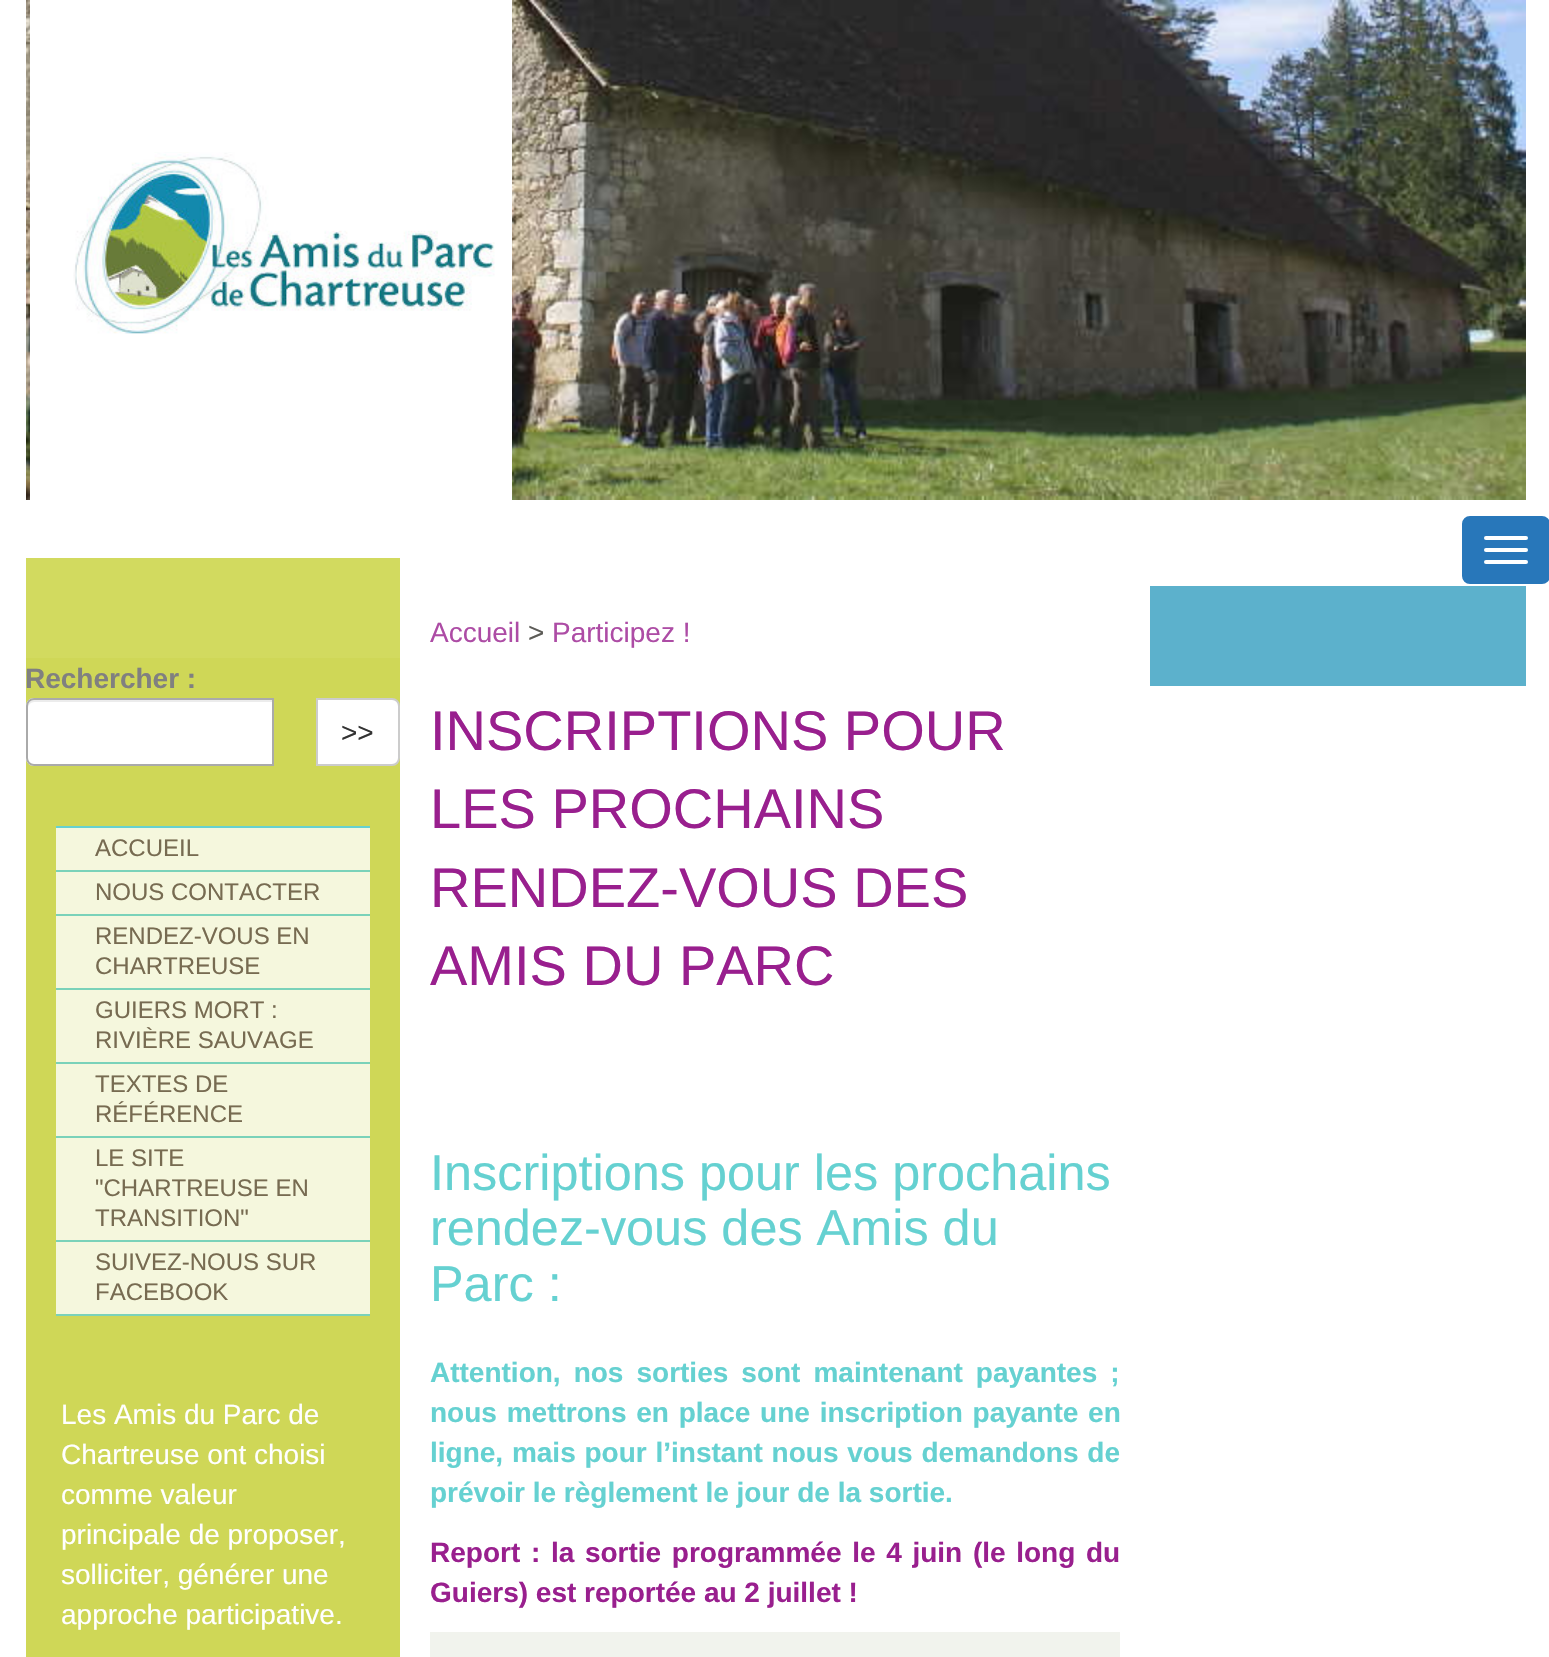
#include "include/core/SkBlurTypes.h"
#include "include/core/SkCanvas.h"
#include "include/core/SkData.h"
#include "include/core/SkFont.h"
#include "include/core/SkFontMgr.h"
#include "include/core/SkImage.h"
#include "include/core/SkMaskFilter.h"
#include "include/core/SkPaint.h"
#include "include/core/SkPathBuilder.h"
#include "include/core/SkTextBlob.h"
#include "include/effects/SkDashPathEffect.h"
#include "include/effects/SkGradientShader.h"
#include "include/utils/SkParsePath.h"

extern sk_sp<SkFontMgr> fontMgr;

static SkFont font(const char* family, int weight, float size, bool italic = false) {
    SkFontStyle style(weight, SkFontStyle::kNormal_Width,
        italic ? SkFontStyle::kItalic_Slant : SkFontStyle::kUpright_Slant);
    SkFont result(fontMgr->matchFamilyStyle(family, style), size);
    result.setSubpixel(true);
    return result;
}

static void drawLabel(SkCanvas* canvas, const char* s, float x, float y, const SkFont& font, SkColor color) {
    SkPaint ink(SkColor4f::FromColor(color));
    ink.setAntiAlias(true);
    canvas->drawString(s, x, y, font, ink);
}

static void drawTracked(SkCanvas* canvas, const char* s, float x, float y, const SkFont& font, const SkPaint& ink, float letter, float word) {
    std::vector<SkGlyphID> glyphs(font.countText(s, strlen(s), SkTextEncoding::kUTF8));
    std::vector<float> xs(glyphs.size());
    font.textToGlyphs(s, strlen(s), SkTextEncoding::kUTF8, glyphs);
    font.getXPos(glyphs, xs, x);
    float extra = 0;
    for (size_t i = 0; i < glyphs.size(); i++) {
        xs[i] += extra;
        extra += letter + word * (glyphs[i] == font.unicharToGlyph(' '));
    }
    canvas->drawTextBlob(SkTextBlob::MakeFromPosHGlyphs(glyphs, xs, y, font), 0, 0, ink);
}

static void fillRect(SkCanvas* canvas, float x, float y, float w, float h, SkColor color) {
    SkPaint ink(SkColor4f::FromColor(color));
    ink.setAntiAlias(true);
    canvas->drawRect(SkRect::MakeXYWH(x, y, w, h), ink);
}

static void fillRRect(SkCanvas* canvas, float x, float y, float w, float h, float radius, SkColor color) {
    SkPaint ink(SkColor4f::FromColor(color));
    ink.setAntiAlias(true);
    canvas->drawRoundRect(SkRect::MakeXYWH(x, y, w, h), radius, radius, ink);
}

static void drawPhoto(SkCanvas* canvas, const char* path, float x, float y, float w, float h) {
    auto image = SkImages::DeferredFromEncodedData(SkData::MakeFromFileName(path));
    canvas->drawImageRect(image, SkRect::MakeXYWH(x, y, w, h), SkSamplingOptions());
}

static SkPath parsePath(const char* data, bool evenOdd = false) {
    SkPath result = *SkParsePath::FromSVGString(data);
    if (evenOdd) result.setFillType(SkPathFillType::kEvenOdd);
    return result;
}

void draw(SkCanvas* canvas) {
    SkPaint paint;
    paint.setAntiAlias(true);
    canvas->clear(0xFFFFFFFF);
    drawPhoto(canvas, "assets/img1.png", 26, 0, 1500, 500);
    fillRect(canvas, 30, 0, 482, 500, 0xFFFFFFFF);
    drawPhoto(canvas, "assets/img2.png", 73, 152, 422, 182);
    paint.setColor(0xFF2877BA);
    canvas->drawRoundRect(SkRect::MakeXYWH(1463, 517, 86, 66), 7, 7, paint);
    paint.setStroke(true);
    paint.setStrokeWidth(2);
    canvas->drawRoundRect(SkRect::MakeXYWH(1463, 517, 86, 66), 7, 7, paint);
    fillRRect(canvas, 1484, 536, 44, 4, 2, 0xFFFFFFFF);
    fillRRect(canvas, 1484, 548, 44, 4, 2, 0xFFFFFFFF);
    fillRRect(canvas, 1484, 560, 44, 4, 2, 0xFFFFFFFF);
    fillRect(canvas, 26, 558, 374, 100, 0xFFD2DA5F);
    fillRect(canvas, 26, 658, 374, 999, 0xFFCFD757);
    SkFont font1 = font("Liberation Sans", 700, 28);
    drawLabel(canvas, "Rechercher :", 25, 688, font1, 0xFF808080);
    paint.setStroke(false);
    paint.setColor(0xFFFFFFFF);
    canvas->drawPath(parsePath("M34 698H274V766H34C29.5 766 26 762.5 26 758V706C26 701.5 29.5 698 34 698Z"), paint);
    paint.setColor(0xFFECECEC);
    canvas->drawPath(parsePath("M34 702H272V700H34C31 700 28 703 28 706V708C28 705 31 702 34 702Z"), paint);
    paint.setStroke(true);
    paint.setColor(0xFFAAAAAA);
    canvas->drawPath(parsePath("M34 699H273V765H34C30 765 27 762 27 758V706C27 702 30 699 34 699Z"), paint);
    paint.setStroke(false);
    paint.setColor(0xFFFFFFFF);
    canvas->drawPath(parsePath("M317 699H392C396 699 399 702 399 706V758C399 762 396 765 392 765H317Z"), paint);
    paint.setStroke(true);
    paint.setColor(0xFFCCCCCC);
    canvas->drawPath(parsePath("M317 699H392C396 699 399 702 399 706V758C399 762 396 765 392 765H317Z"), paint);
    SkFont font2 = font("Liberation Sans", 400, 28);
    drawLabel(canvas, ">>", 341, 742, font2, 0xFF333333);
    fillRect(canvas, 56, 826, 314, 2, 0xFF65D1D1);
    fillRect(canvas, 56, 828, 314, 42, 0xFFF5F7DD);
    fillRect(canvas, 56, 870, 314, 2, 0xFF7AD2B9);
    SkFont font3 = font("Liberation Sans", 400, 24);
    drawLabel(canvas, "ACCUEIL", 95, 856, font3, 0xFF776B51);
    fillRect(canvas, 56, 872, 314, 42, 0xFFF5F7DD);
    fillRect(canvas, 56, 914, 314, 2, 0xFF7AD2B9);
    drawLabel(canvas, "NOUS CONTACTER", 95, 900, font3, 0xFF776B51);
    fillRect(canvas, 56, 916, 314, 72, 0xFFF5F7DD);
    fillRect(canvas, 56, 988, 314, 2, 0xFF7AD2B9);
    drawLabel(canvas, "RENDEZ-VOUS EN", 95, 944, font3, 0xFF776B51);
    drawLabel(canvas, "CHARTREUSE", 95, 974, font3, 0xFF776B51);
    fillRect(canvas, 56, 990, 314, 72, 0xFFF5F7DD);
    fillRect(canvas, 56, 1062, 314, 2, 0xFF7AD2B9);
    drawLabel(canvas, "GUIERS MORT :", 95, 1018, font3, 0xFF776B51);
    drawLabel(canvas, "RIVIÈRE SAUVAGE", 95, 1048, font3, 0xFF776B51);
    fillRect(canvas, 56, 1064, 314, 72, 0xFFF5F7DD);
    fillRect(canvas, 56, 1136, 314, 2, 0xFF7AD2B9);
    drawLabel(canvas, "TEXTES DE", 95, 1092, font3, 0xFF776B51);
    drawLabel(canvas, "RÉFÉRENCE", 95, 1122, font3, 0xFF776B51);
    fillRect(canvas, 56, 1138, 314, 102, 0xFFF5F7DD);
    fillRect(canvas, 56, 1240, 314, 2, 0xFF7AD2B9);
    drawLabel(canvas, "LE SITE", 95, 1166, font3, 0xFF776B51);
    drawLabel(canvas, "\"CHARTREUSE EN", 95, 1196, font3, 0xFF776B51);
    drawLabel(canvas, "TRANSITION\"", 95, 1226, font3, 0xFF776B51);
    fillRect(canvas, 56, 1242, 314, 72, 0xFFF5F7DD);
    fillRect(canvas, 56, 1314, 314, 2, 0xFF7AD2B9);
    drawLabel(canvas, "SUIVEZ-NOUS SUR", 95, 1270, font3, 0xFF776B51);
    drawLabel(canvas, "FACEBOOK", 95, 1300, font3, 0xFF776B51);
    drawLabel(canvas, "Les Amis du Parc de", 61, 1424, font2, 0xFFFFFFFF);
    drawLabel(canvas, "Chartreuse ont choisi", 61, 1464, font2, 0xFFFFFFFF);
    drawLabel(canvas, "comme valeur", 61, 1504, font2, 0xFFFFFFFF);
    drawLabel(canvas, "principale de proposer,", 61, 1544, font2, 0xFFFFFFFF);
    drawLabel(canvas, "solliciter, générer une", 61, 1584, font2, 0xFFFFFFFF);
    drawLabel(canvas, "approche participative.", 61, 1624, font2, 0xFFFFFFFF);
    drawLabel(canvas, "Accueil", 430, 642, font2, 0xFFAD4CA5);
    drawLabel(canvas, ">", 528, 642, font2, 0xFF5D5C58);
    drawLabel(canvas, "Participez !", 552, 642, font2, 0xFFAD4CA5);
    SkFont font4 = font("Liberation Sans", 400, 56);
    drawLabel(canvas, "INSCRIPTIONS POUR", 430, 750, font4, 0xFF991F8E);
    drawLabel(canvas, "LES PROCHAINS", 430, 828, font4, 0xFF991F8E);
    drawLabel(canvas, "RENDEZ-VOUS DES", 430, 907, font4, 0xFF991F8E);
    drawLabel(canvas, "AMIS DU PARC", 430, 985, font4, 0xFF991F8E);
    SkFont font5 = font("Liberation Sans", 400, 50.4f);
    drawLabel(canvas, "Inscriptions pour les prochains", 430, 1190, font5, 0xFF65D1D1);
    drawLabel(canvas, "rendez-vous des Amis du", 430, 1245, font5, 0xFF65D1D1);
    drawLabel(canvas, "Parc :", 430, 1301, font5, 0xFF65D1D1);
    paint.setStroke(false);
    paint.setColor(0xFF65D1D1);
    drawTracked(canvas, "Attention, nos sorties sont maintenant payantes ;", 430, 1382, font1, paint, 0, 5.25f);
    drawTracked(canvas, "nous mettrons en place une inscription payante en", 430, 1422, font1, paint, 0, 2);
    drawTracked(canvas, "ligne, mais pour l’instant nous vous demandons de", 430, 1462, font1, paint, 0, 1);
    drawLabel(canvas, "prévoir le règlement le jour de la sortie.", 430, 1502, font1, 0xFF65D1D1);
    paint.setColor(0xFF991F8E);
    drawTracked(canvas, "Report : la sortie programmée le 4 juin (le long du", 430, 1562, font1, paint, 0, 2.9f);
    drawLabel(canvas, "Guiers) est reportée au 2 juillet !", 430, 1602, font1, 0xFF991F8E);
    fillRect(canvas, 430, 1632, 690, 25, 0xFFF1F3ED);
    fillRect(canvas, 1150, 586, 376, 100, 0xFF5CB1CC);
}
